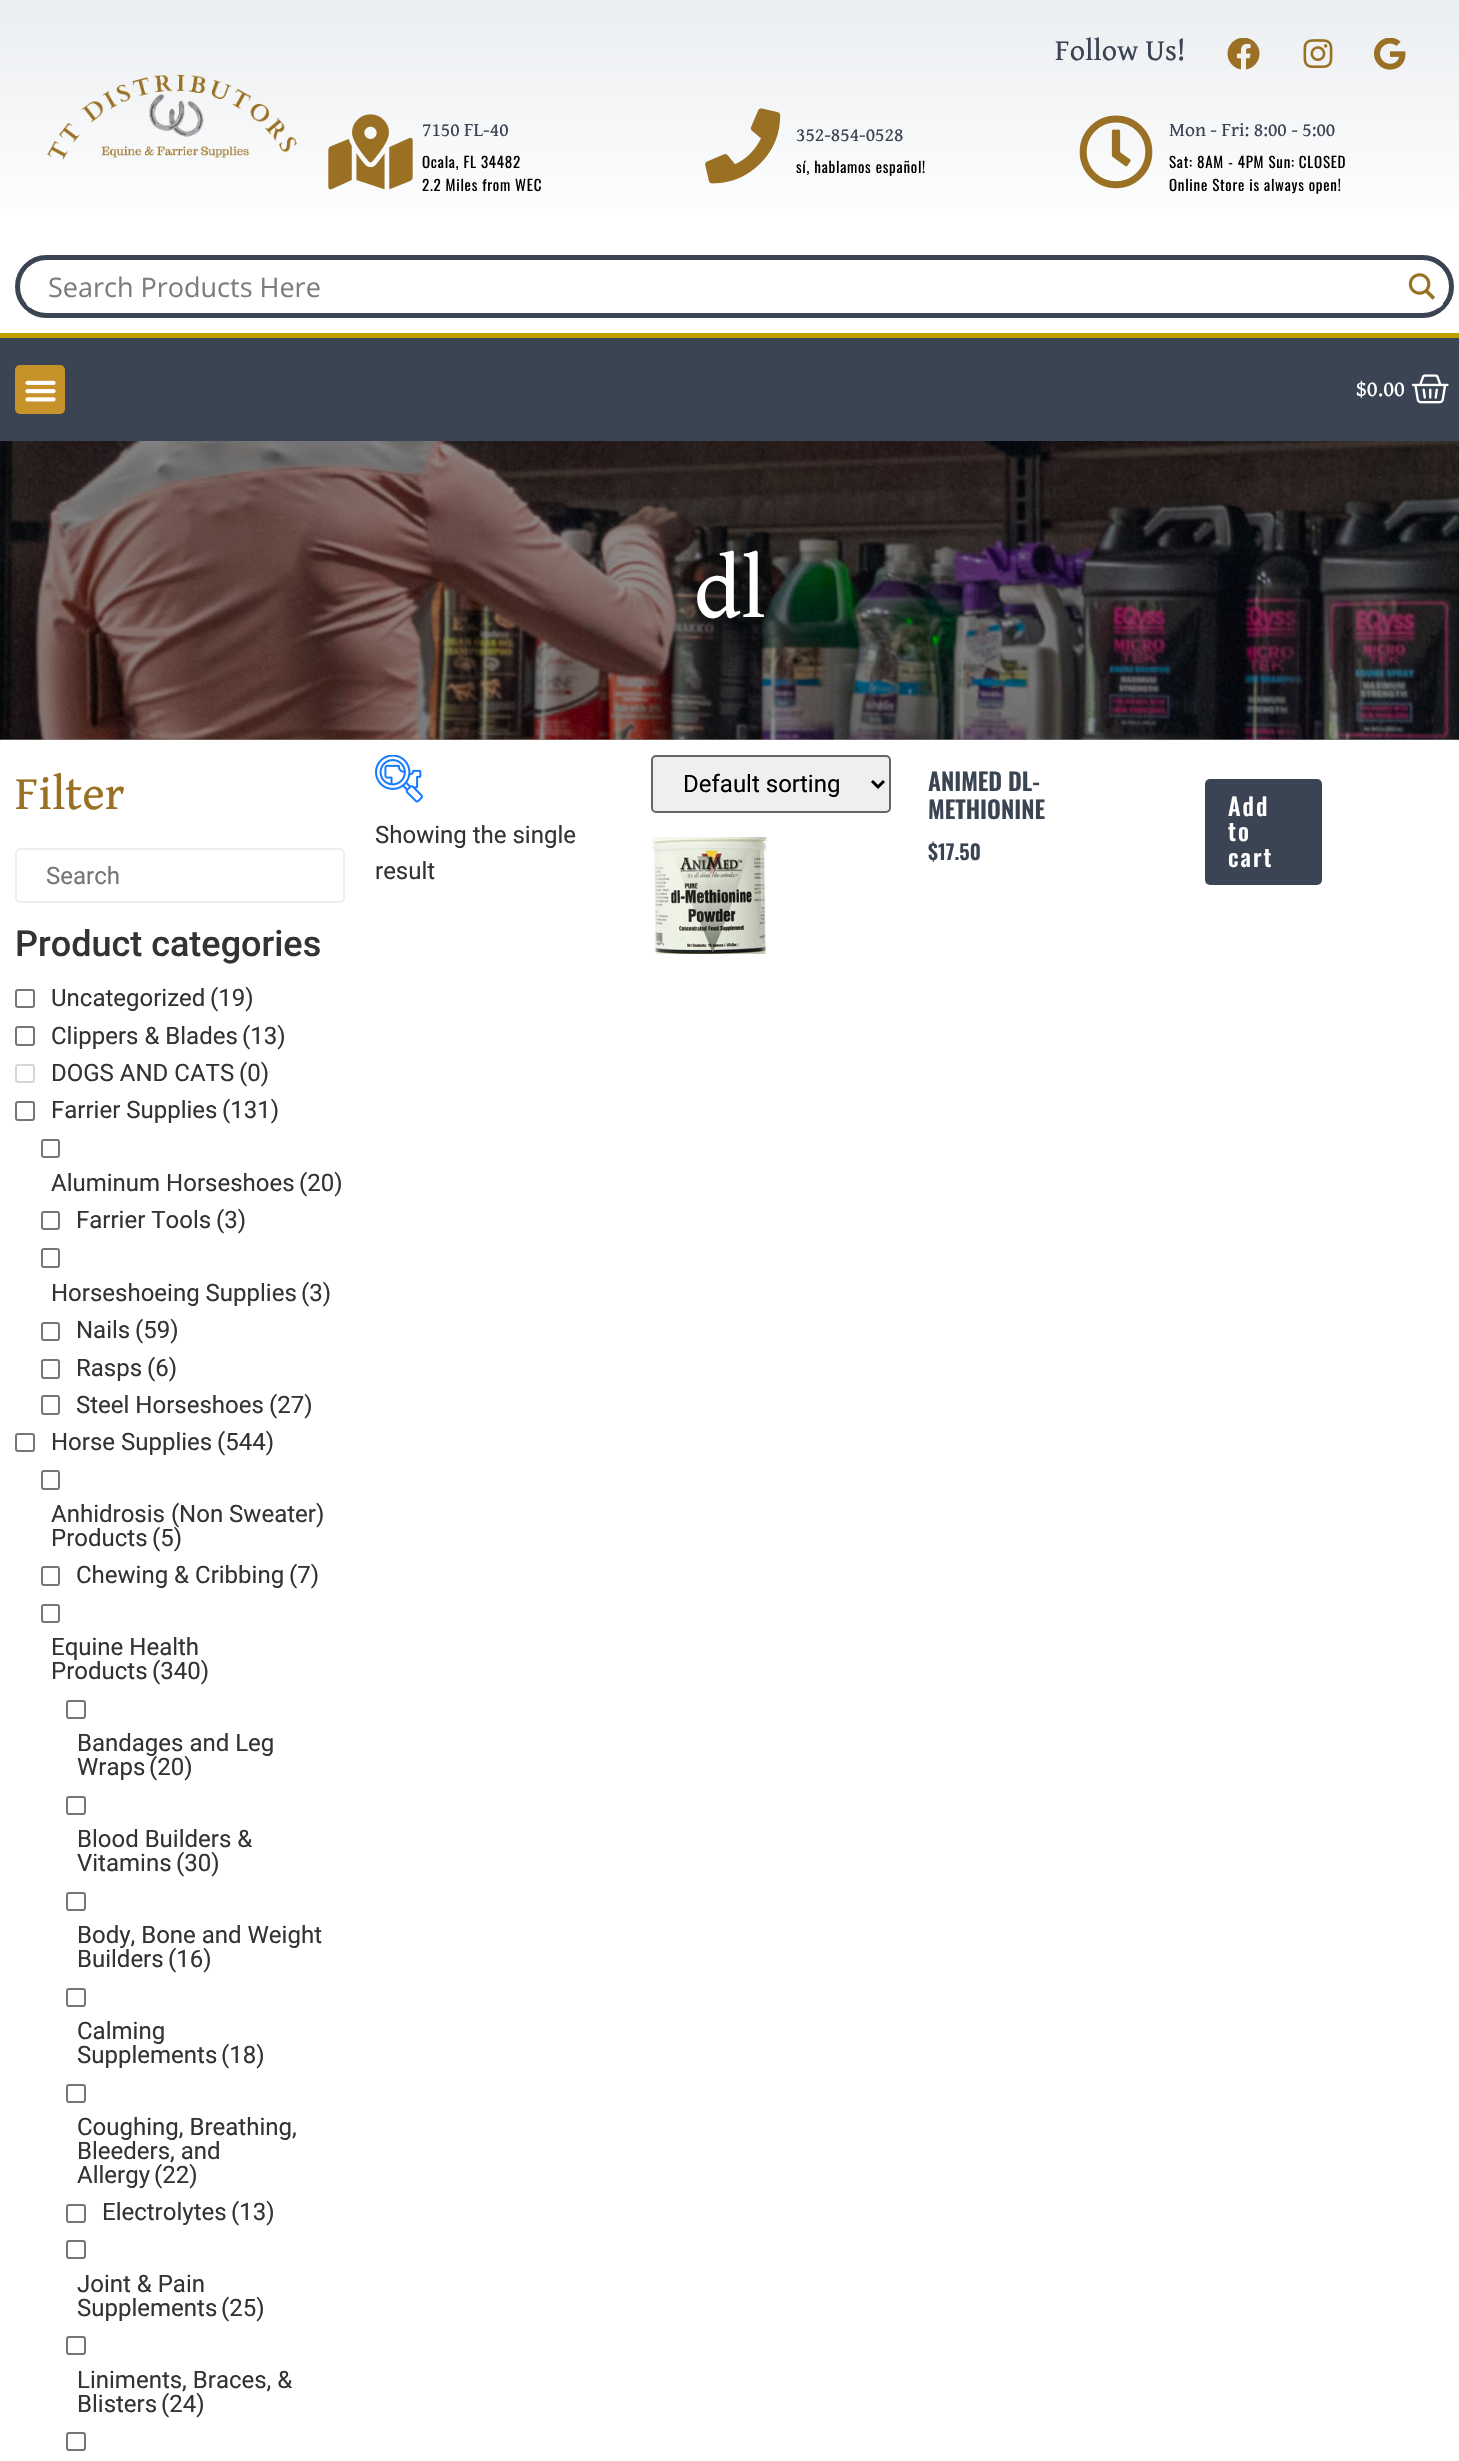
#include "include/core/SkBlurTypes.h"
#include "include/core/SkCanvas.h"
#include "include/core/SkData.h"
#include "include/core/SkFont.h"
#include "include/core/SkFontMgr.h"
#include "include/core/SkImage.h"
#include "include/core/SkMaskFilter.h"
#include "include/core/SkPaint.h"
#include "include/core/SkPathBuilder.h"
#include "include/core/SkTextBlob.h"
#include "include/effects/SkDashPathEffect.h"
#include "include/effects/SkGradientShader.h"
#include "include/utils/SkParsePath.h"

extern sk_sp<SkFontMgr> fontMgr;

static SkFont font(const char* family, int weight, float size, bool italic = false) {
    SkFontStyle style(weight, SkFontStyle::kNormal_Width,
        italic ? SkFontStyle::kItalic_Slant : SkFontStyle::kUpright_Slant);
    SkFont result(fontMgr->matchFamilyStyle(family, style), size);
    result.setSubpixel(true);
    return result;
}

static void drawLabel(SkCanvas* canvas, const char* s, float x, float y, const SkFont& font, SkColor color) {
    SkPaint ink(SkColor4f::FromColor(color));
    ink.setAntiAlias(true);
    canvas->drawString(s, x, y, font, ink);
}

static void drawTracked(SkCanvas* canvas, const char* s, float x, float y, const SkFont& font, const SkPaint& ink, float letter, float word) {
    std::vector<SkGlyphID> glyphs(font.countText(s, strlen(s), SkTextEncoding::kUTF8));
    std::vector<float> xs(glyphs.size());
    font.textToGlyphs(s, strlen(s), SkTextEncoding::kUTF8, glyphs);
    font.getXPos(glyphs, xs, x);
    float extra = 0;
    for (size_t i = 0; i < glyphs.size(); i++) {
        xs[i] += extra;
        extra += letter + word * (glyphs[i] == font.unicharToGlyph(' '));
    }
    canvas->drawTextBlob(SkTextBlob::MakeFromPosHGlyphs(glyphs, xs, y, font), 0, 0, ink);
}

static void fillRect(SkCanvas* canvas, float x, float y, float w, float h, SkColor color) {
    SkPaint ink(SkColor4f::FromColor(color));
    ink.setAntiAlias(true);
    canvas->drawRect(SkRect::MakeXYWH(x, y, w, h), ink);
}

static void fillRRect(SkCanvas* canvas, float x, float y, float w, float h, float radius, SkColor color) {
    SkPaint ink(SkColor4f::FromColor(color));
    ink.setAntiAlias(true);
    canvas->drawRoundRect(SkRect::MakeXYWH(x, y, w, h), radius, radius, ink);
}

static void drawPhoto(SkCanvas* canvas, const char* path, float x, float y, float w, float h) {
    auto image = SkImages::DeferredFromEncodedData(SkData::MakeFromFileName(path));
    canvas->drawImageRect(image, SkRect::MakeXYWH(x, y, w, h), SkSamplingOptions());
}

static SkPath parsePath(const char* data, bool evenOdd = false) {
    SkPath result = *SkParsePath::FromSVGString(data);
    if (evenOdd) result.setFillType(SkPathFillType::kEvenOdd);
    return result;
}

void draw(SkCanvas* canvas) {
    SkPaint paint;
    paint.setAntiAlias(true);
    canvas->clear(0xFFFFFFFF);
    fillRect(canvas, 0, 739, 1459, 1, 0xFF919191);
    {
        const SkColor colors[] = {0xFFEBEEF1, 0xFFFFFFFF};
        const float stops[] = {0, 1};
        const SkPoint ends[] = {{730, 0}, {730, 240}};
        paint.setShader(SkGradientShader::MakeLinear(ends, colors, stops, 2, SkTileMode::kClamp));
        paint.setAlpha(255);
    }
    canvas->drawRect(SkRect::MakeXYWH(0, 0, 1459, 210), paint);
    drawPhoto(canvas, "assets/img1.png", 47, 74, 251, 86);
    SkFont font1 = font("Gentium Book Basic", 400, 30);
    drawLabel(canvas, "Follow Us!", 1055, 60, font1, 0xFF3B4453);
    drawPhoto(canvas, "assets/img2.png", 1227, 38, 33, 32);
    drawPhoto(canvas, "assets/img3.png", 1303, 39, 30, 30);
    drawPhoto(canvas, "assets/img4.png", 1374, 38, 32, 32);
    drawPhoto(canvas, "assets/img5.png", 328, 114, 85, 76);
    SkFont font2 = font("Gentium Book Basic", 400, 19.5f);
    drawLabel(canvas, "7150 FL-40", 422, 136, font2, 0xFF3B4453);
    SkFont font3 = font("Oswald", 400, 15);
    paint.setShader(nullptr);
    paint.setColor(0xFF000000);
    drawTracked(canvas, "Ocala, FL 34482", 422, 168, font3, paint, 0.75f, 0);
    drawTracked(canvas, "2.2 Miles from WEC", 422, 191, font3, paint, 0.75f, 0);
    drawPhoto(canvas, "assets/img6.png", 705, 108, 76, 76);
    drawLabel(canvas, "352-854-0528", 796, 141, font2, 0xFF3B4453);
    drawTracked(canvas, "sí, hablamos español!", 796, 173, font3, paint, 0.75f, 0);
    drawPhoto(canvas, "assets/img7.png", 1079, 115, 74, 74);
    drawLabel(canvas, "Mon - Fri: 8:00 - 5:00", 1169, 136, font2, 0xFF3B4453);
    drawTracked(canvas, "Sat: 8AM - 4PM Sun: CLOSED", 1169, 168, font3, paint, 0.75f, 0);
    drawTracked(canvas, "Online Store is always open!", 1169, 191, font3, paint, 0.75f, 0);
    paint.setStroke(true);
    paint.setStrokeWidth(5);
    paint.setColor(0xFF3B4453);
    canvas->drawRoundRect(SkRect::MakeXYWH(17.5f, 257.5f, 1434, 58), 29, 29, paint);
    canvas->save();
    canvas->clipPath(parsePath("M47 260H1422C1437 260 1449 272 1449 287C1449 302 1437 314 1422 314H47C32 314 20 302 20 287C20 272 32 260 47 260Z"), true);
    fillRRect(canvas, 26, 266, 1417, 42, 5, 0xFFFFFFFF);
    canvas->restore();
    SkFont font4 = font("Open Sans", 400, 27);
    drawLabel(canvas, "Search Products Here", 48, 297, font4, 0xFF7D7D7D);
    canvas->save();
    canvas->clipRect(SkRect::MakeXYWH(1401, 266, 42, 42));
    paint.setStroke(false);
    paint.setColor(0x9CFFFFFF);
    canvas->drawPath(parsePath("M1400 267H1440L1439 266H1252V308H1400ZM1442 305V269C1444 271 1443 273 1443 276V298C1443 301 1444 303 1442 305Z", true), paint);
    canvas->restore();
    canvas->save();
    canvas->clipPath(parsePath("M47 260H1422C1437 260 1449 272 1449 287C1449 302 1437 314 1422 314H47C32 314 20 302 20 287C20 272 32 260 47 260Z"), true);
    paint.setColor(0xFFFFFFFF);
    canvas->drawPath(parsePath("M1401 266H1438C1441 266 1443 268 1443 271V303C1443 306 1441 308 1438 308H1401Z"), paint);
    canvas->restore();
    drawPhoto(canvas, "assets/img8.png", 1408, 273, 28, 27);
    fillRect(canvas, 0, 338, 1459, 103, 0xFF3B4453);
    fillRect(canvas, 0, 333, 1459, 5, 0xFFBF9F00);
    fillRRect(canvas, 15, 365, 50, 49, 5, 0xFFC8922B);
    drawPhoto(canvas, "assets/img9.png", 25, 380, 31, 22);
    SkFont font5 = font("Gentium Book Basic", 400, 22.5f);
    drawLabel(canvas, "$0.00", 1356, 396, font5, 0xFFFFFFFF);
    drawPhoto(canvas, "assets/img10.png", 1411, 374, 38, 30);
    drawPhoto(canvas, "assets/img11.png", 0, 441, 1459, 299);
    SkFont font6 = font("Gentium Book Basic", 400, 88);
    drawLabel(canvas, "dl", 694, 617, font6, 0xFFFFFFFF);
    SkFont font7 = font("Gentium Book Basic", 400, 48);
    drawLabel(canvas, "Filter", 15, 809, font7, 0xFF997024);
    paint.setStroke(true);
    paint.setStrokeWidth(2);
    paint.setColor(0xFFEEEEEE);
    canvas->drawRoundRect(SkRect::MakeXYWH(16, 849, 328, 53), 4, 4, paint);
    SkFont font8 = font("Roboto", 400, 24);
    drawLabel(canvas, "Search", 46, 884, font8, 0xFF757575);
    SkFont font9 = font("Roboto", 500, 36);
    drawLabel(canvas, "Product categories", 15, 956, font9, 0xFF333333);
    paint.setColor(0xFF767676);
    canvas->drawRoundRect(SkRect::MakeXYWH(16, 990, 18, 17), 2, 2, paint);
    drawLabel(canvas, "Uncategorized", 51, 1006, font8, 0xFF333333);
    drawLabel(canvas, "(19)", 210, 1006, font8, 0xFF333333);
    canvas->drawRoundRect(SkRect::MakeXYWH(16, 1027, 18, 18), 2, 2, paint);
    drawLabel(canvas, "Clippers & Blades", 51, 1044, font8, 0xFF333333);
    drawLabel(canvas, "(13)", 242, 1044, font8, 0xFF333333);
    paint.setColor(0xFFD6D6D6);
    canvas->drawRoundRect(SkRect::MakeXYWH(16, 1065, 18, 17), 2, 2, paint);
    drawLabel(canvas, "DOGS AND CATS", 51, 1081, font8, 0xFF333333);
    drawLabel(canvas, "(0)", 239, 1081, font8, 0xFF333333);
    paint.setColor(0xFF767676);
    canvas->drawRoundRect(SkRect::MakeXYWH(16, 1102, 18, 18), 2, 2, paint);
    drawLabel(canvas, "Farrier Supplies", 51, 1118, font8, 0xFF333333);
    drawLabel(canvas, "(131)", 222, 1118, font8, 0xFF333333);
    canvas->drawRoundRect(SkRect::MakeXYWH(42, 1140, 17, 17), 2, 2, paint);
    drawLabel(canvas, "Aluminum Horseshoes", 51, 1191, font8, 0xFF333333);
    drawLabel(canvas, "(20)", 299, 1191, font8, 0xFF333333);
    canvas->drawRoundRect(SkRect::MakeXYWH(42, 1212, 17, 17), 2, 2, paint);
    drawLabel(canvas, "Farrier Tools", 76, 1228, font8, 0xFF333333);
    drawLabel(canvas, "(3)", 216, 1228, font8, 0xFF333333);
    canvas->drawRoundRect(SkRect::MakeXYWH(42, 1249, 17, 18), 2, 2, paint);
    drawLabel(canvas, "Horseshoeing Supplies", 51, 1301, font8, 0xFF333333);
    drawLabel(canvas, "(3)", 301, 1301, font8, 0xFF333333);
    canvas->drawRoundRect(SkRect::MakeXYWH(42, 1323, 17, 17), 2, 2, paint);
    drawLabel(canvas, "Nails", 76, 1338, font8, 0xFF333333);
    drawLabel(canvas, "(59)", 135, 1338, font8, 0xFF333333);
    canvas->drawRoundRect(SkRect::MakeXYWH(42, 1360, 17, 18), 2, 2, paint);
    drawLabel(canvas, "Rasps", 76, 1376, font8, 0xFF333333);
    drawLabel(canvas, "(6)", 147, 1376, font8, 0xFF333333);
    canvas->drawRoundRect(SkRect::MakeXYWH(42, 1396, 17, 18), 2, 2, paint);
    drawLabel(canvas, "Steel Horseshoes", 76, 1413, font8, 0xFF333333);
    drawLabel(canvas, "(27)", 269, 1413, font8, 0xFF333333);
    canvas->drawRoundRect(SkRect::MakeXYWH(16, 1434, 18, 17), 2, 2, paint);
    drawLabel(canvas, "Horse Supplies", 51, 1450, font8, 0xFF333333);
    drawLabel(canvas, "(544)", 217, 1450, font8, 0xFF333333);
    canvas->drawRoundRect(SkRect::MakeXYWH(42, 1471, 17, 18), 2, 2, paint);
    drawLabel(canvas, "Anhidrosis (Non Sweater)", 51, 1522, font8, 0xFF333333);
    drawLabel(canvas, "Products", 51, 1546, font8, 0xFF333333);
    drawLabel(canvas, "(5)", 152, 1546, font8, 0xFF333333);
    canvas->drawRoundRect(SkRect::MakeXYWH(42, 1567, 17, 18), 2, 2, paint);
    drawLabel(canvas, "Chewing & Cribbing", 76, 1583, font8, 0xFF333333);
    drawLabel(canvas, "(7)", 289, 1583, font8, 0xFF333333);
    canvas->drawRoundRect(SkRect::MakeXYWH(42, 1605, 17, 17), 2, 2, paint);
    drawLabel(canvas, "Equine Health", 51, 1655, font8, 0xFF333333);
    drawLabel(canvas, "Products", 51, 1679, font8, 0xFF333333);
    drawLabel(canvas, "(340)", 152, 1679, font8, 0xFF333333);
    canvas->drawRoundRect(SkRect::MakeXYWH(67, 1701, 18, 17), 2, 2, paint);
    drawLabel(canvas, "Bandages and Leg", 77, 1751, font8, 0xFF333333);
    drawLabel(canvas, "Wraps", 77, 1775, font8, 0xFF333333);
    drawLabel(canvas, "(20)", 149, 1775, font8, 0xFF333333);
    canvas->drawRoundRect(SkRect::MakeXYWH(67, 1797, 18, 17), 2, 2, paint);
    drawLabel(canvas, "Blood Builders &", 77, 1847, font8, 0xFF333333);
    drawLabel(canvas, "Vitamins", 77, 1871, font8, 0xFF333333);
    drawLabel(canvas, "(30)", 176, 1871, font8, 0xFF333333);
    canvas->drawRoundRect(SkRect::MakeXYWH(67, 1893, 18, 17), 2, 2, paint);
    drawLabel(canvas, "Body, Bone and Weight", 77, 1943, font8, 0xFF333333);
    drawLabel(canvas, "Builders", 77, 1967, font8, 0xFF333333);
    drawLabel(canvas, "(16)", 168, 1967, font8, 0xFF333333);
    canvas->drawRoundRect(SkRect::MakeXYWH(67, 1989, 18, 17), 2, 2, paint);
    drawLabel(canvas, "Calming", 77, 2039, font8, 0xFF333333);
    drawLabel(canvas, "Supplements", 77, 2063, font8, 0xFF333333);
    drawLabel(canvas, "(18)", 221, 2063, font8, 0xFF333333);
    canvas->drawRoundRect(SkRect::MakeXYWH(67, 2085, 18, 17), 2, 2, paint);
    drawLabel(canvas, "Coughing, Breathing,", 77, 2135, font8, 0xFF333333);
    drawLabel(canvas, "Bleeders, and", 77, 2159, font8, 0xFF333333);
    drawLabel(canvas, "Allergy", 77, 2183, font8, 0xFF333333);
    drawLabel(canvas, "(22)", 154, 2183, font8, 0xFF333333);
    canvas->drawRoundRect(SkRect::MakeXYWH(67, 2205, 18, 17), 2, 2, paint);
    drawLabel(canvas, "Electrolytes", 102, 2220, font8, 0xFF333333);
    drawLabel(canvas, "(13)", 231, 2220, font8, 0xFF333333);
    canvas->drawRoundRect(SkRect::MakeXYWH(67, 2241, 18, 17), 2, 2, paint);
    drawLabel(canvas, "Joint & Pain", 77, 2292, font8, 0xFF333333);
    drawLabel(canvas, "Supplements", 77, 2316, font8, 0xFF333333);
    drawLabel(canvas, "(25)", 221, 2316, font8, 0xFF333333);
    canvas->drawRoundRect(SkRect::MakeXYWH(67, 2337, 18, 17), 2, 2, paint);
    drawLabel(canvas, "Liniments, Braces, &", 77, 2388, font8, 0xFF333333);
    drawLabel(canvas, "Blisters", 77, 2412, font8, 0xFF333333);
    drawLabel(canvas, "(24)", 161, 2412, font8, 0xFF333333);
    canvas->drawRoundRect(SkRect::MakeXYWH(67, 2433, 18, 17), 2, 2, paint);
    drawPhoto(canvas, "assets/img12.png", 375, 755, 48, 48);
    paint.setStroke(false);
    paint.setColor(0xFFEFEFEF);
    canvas->drawRoundRect(SkRect::MakeXYWH(652, 756, 238, 56), 4, 4, paint);
    paint.setStroke(true);
    paint.setColor(0xFF666666);
    canvas->drawRoundRect(SkRect::MakeXYWH(652, 756, 238, 56), 4, 4, paint);
    paint.setStrokeWidth(3);
    paint.setColor(0xFF000000);
    canvas->drawPath(parsePath("M872 781L878 787L884 781"), paint);
    drawLabel(canvas, "Default sorting", 683, 792, font8, 0xFF000000);
    SkFont font10 = font("Oswald", 600, 24);
    drawLabel(canvas, "ANIMED DL-", 928, 791, font10, 0xFF3B4453);
    drawLabel(canvas, "METHIONINE", 928, 819, font10, 0xFF3B4453);
    drawPhoto(canvas, "assets/img13.png", 651, 837, 116, 117);
    SkFont font11 = font("Oswald", 600, 20.5f);
    drawLabel(canvas, "$17.50", 928, 860, font11, 0xFF3B4453);
    fillRRect(canvas, 1205, 779, 117, 106, 5, 0xFF3B4453);
    SkFont font12 = font("Oswald", 500, 24);
    paint.setStroke(false);
    paint.setColor(0xFFFFFFFF);
    drawTracked(canvas, "Add", 1228, 816, font12, paint, 2, 0);
    drawTracked(canvas, "to", 1228, 841, font12, paint, 2, 0);
    drawTracked(canvas, "cart", 1228, 867, font12, paint, 2, 0);
    drawLabel(canvas, "Showing the single", 375, 843, font8, 0xFF333333);
    drawLabel(canvas, "result", 375, 879, font8, 0xFF333333);
}
